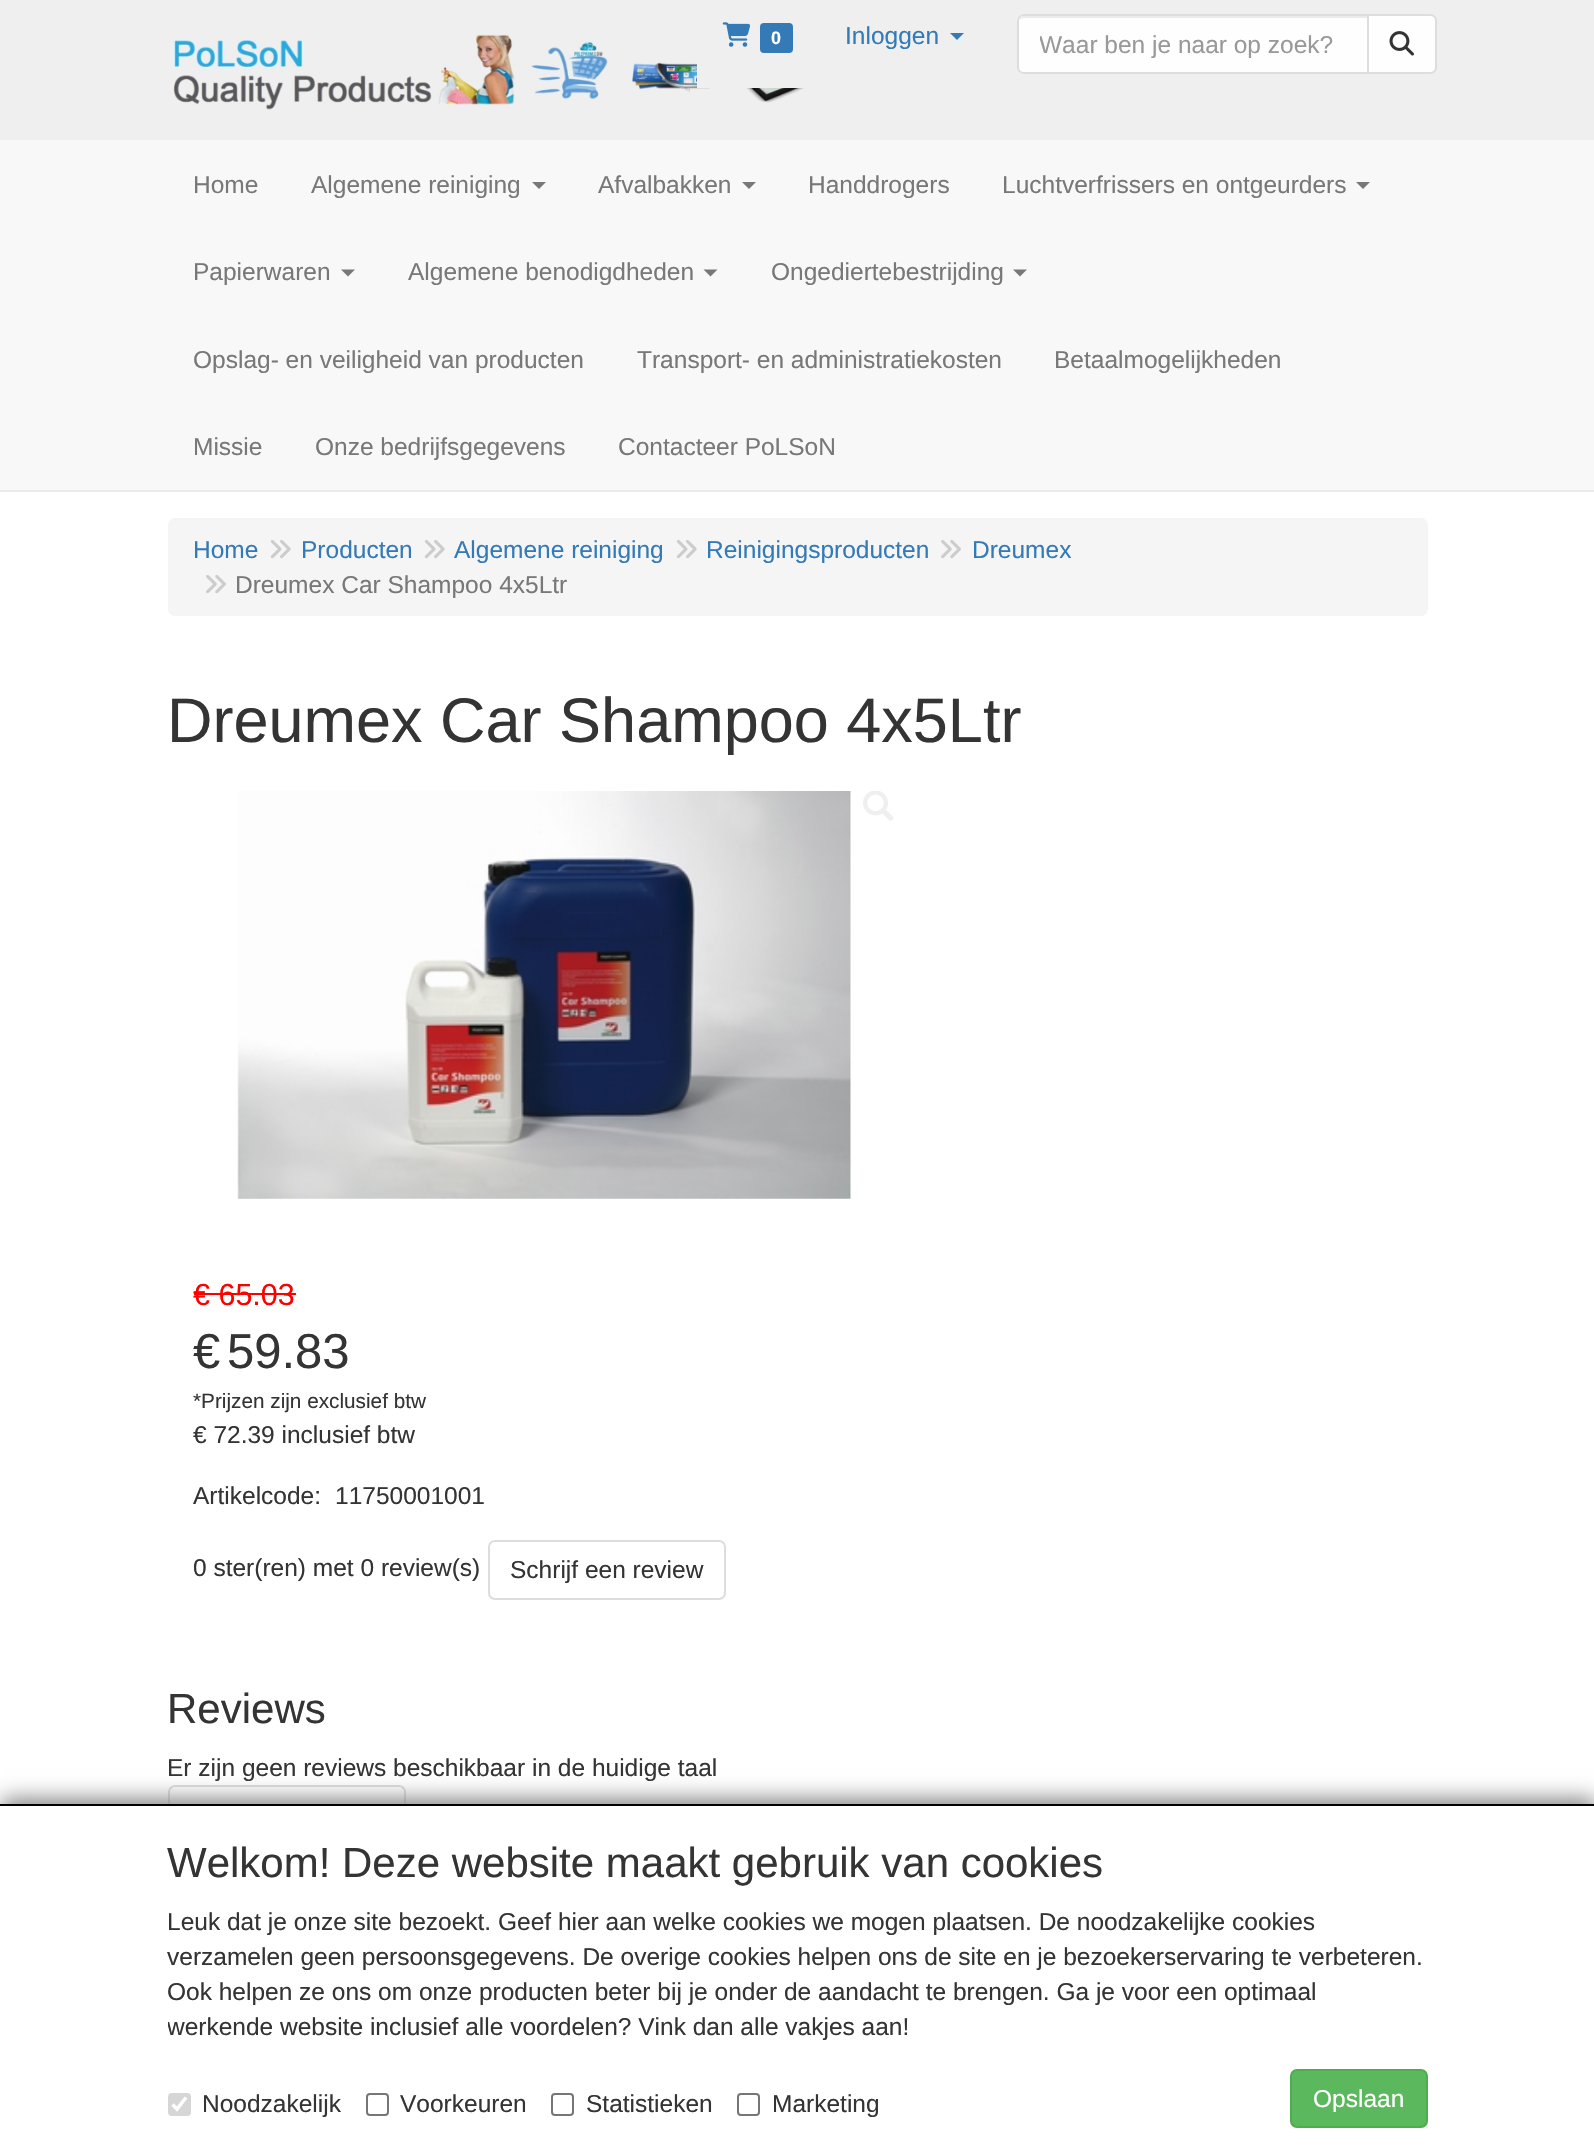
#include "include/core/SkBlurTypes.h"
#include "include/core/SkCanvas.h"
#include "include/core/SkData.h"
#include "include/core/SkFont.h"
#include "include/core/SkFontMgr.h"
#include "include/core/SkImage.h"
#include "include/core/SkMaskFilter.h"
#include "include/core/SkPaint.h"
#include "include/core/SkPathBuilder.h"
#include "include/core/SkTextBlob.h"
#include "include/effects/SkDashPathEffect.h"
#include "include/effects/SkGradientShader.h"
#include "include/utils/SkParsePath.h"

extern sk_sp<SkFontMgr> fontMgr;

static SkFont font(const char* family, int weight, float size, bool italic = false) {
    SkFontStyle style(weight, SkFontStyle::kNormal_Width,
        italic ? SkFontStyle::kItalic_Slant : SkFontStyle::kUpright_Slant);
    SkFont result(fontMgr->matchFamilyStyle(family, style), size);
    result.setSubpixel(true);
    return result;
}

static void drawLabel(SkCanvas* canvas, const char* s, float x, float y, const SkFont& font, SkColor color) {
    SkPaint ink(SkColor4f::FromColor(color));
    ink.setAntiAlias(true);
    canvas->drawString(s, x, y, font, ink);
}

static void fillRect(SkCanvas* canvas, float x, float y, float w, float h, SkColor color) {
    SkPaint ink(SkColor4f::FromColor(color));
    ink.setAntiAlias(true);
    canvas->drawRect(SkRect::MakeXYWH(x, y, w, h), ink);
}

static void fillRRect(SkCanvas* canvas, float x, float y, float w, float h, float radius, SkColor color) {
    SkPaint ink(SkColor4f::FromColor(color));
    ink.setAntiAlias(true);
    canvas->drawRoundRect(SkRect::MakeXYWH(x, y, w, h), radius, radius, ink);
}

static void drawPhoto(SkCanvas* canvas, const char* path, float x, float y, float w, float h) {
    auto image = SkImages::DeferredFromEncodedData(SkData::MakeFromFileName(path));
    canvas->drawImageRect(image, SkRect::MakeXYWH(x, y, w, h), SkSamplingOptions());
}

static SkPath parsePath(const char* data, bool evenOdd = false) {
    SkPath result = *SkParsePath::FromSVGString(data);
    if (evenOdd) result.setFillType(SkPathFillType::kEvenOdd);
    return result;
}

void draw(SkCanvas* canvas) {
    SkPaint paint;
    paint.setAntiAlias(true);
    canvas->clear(0xFFFFFFFF);
    fillRect(canvas, 0, 0, 1594, 140, 0xFFEFEFEF);
    drawPhoto(canvas, "assets/img1.png", 173, 26, 635, 84);
    fillRect(canvas, 697, 26, 111, 62, 0xFFEFEFEF);
    drawPhoto(canvas, "assets/img2.png", 722, 22, 28, 25);
    fillRRect(canvas, 760, 23, 33, 30, 4, 0xFF337AB7);
    SkFont font1 = font("Liberation Sans", 700, 18);
    drawLabel(canvas, "0", 771, 44, font1, 0xFFFFFFFF);
    SkFont font2 = font("Liberation Sans", 400, 24.5f);
    drawLabel(canvas, "Inloggen", 845, 44, font2, 0xFF337AB7);
    paint.setColor(0xFF337AB7);
    canvas->drawPath(parsePath("M950 33H964L957 40Z"), paint);
    paint.setColor(0xFFFEFEFE);
    canvas->drawPath(parsePath("M1024 14H1369V74H1024C1020 74 1017 71 1017 67V21C1017 17 1020 14 1024 14Z"), paint);
    paint.setColor(0xFFEBEBEB);
    canvas->drawPath(parsePath("M1024 18H1367V16H1024C1022 16 1019 18 1019 20C1020 19 1022 18 1024 18Z"), paint);
    paint.setStroke(true);
    paint.setStrokeWidth(2);
    paint.setColor(0xFFDDDDDD);
    canvas->drawPath(parsePath("M1024 15H1368V73H1024C1020.5 73 1018 70.5 1018 67V21C1018 17.5 1020.5 15 1024 15Z"), paint);
    canvas->save();
    canvas->clipRect(SkRect::MakeXYWH(1040, 30, 309, 28));
    drawLabel(canvas, "Waar ben je naar op zoek?", 1039, 53, font2, 0xFF999999);
    canvas->restore();
    paint.setStroke(false);
    paint.setColor(0xFFFEFEFE);
    canvas->drawPath(parsePath("M1368 15H1430C1433.5 15 1436 17.5 1436 21V67C1436 70.5 1433.5 73 1430 73H1368Z"), paint);
    paint.setStroke(true);
    paint.setColor(0xFFDDDDDD);
    canvas->drawPath(parsePath("M1368 15H1430C1433.5 15 1436 17.5 1436 21V67C1436 70.5 1433.5 73 1430 73H1368Z"), paint);
    drawPhoto(canvas, "assets/img3.png", 1389, 31, 25, 25);
    fillRect(canvas, 0, 140, 1594, 350, 0xFFF8F8F8);
    fillRect(canvas, 0, 490, 1594, 2, 0xFFEBEBEB);
    drawLabel(canvas, "Home", 193, 193, font2, 0xFF787878);
    drawLabel(canvas, "Algemene reiniging", 311, 193, font2, 0xFF787878);
    paint.setStroke(false);
    paint.setColor(0xFF787878);
    canvas->drawPath(parsePath("M532 182H546L539 189Z"), paint);
    drawLabel(canvas, "Afvalbakken", 598, 193, font2, 0xFF787878);
    canvas->drawPath(parsePath("M742 182H756L749 189Z"), paint);
    drawLabel(canvas, "Handdrogers", 808, 193, font2, 0xFF787878);
    drawLabel(canvas, "Luchtverfrissers en ontgeurders", 1002, 193, font2, 0xFF787878);
    canvas->drawPath(parsePath("M1356 182H1370L1363 189Z"), paint);
    drawLabel(canvas, "Papierwaren", 193, 280, font2, 0xFF787878);
    canvas->drawPath(parsePath("M341 269.5H355L348 276.5Z"), paint);
    drawLabel(canvas, "Algemene benodigdheden", 408, 280, font2, 0xFF787878);
    canvas->drawPath(parsePath("M703.5 269.5H717.5L710.5 276.5Z"), paint);
    drawLabel(canvas, "Ongediertebestrijding", 771, 280, font2, 0xFF787878);
    canvas->drawPath(parsePath("M1013 269.5H1027L1020 276.5Z"), paint);
    drawLabel(canvas, "Opslag- en veiligheid van producten", 193, 368, font2, 0xFF787878);
    drawLabel(canvas, "Transport- en administratiekosten", 637, 368, font2, 0xFF787878);
    drawLabel(canvas, "Betaalmogelijkheden", 1054, 368, font2, 0xFF787878);
    drawLabel(canvas, "Missie", 193, 455, font2, 0xFF787878);
    drawLabel(canvas, "Onze bedrijfsgegevens", 315, 455, font2, 0xFF787878);
    drawLabel(canvas, "Contacteer PoLSoN", 618, 455, font2, 0xFF787878);
    fillRRect(canvas, 168, 518, 1260, 98, 7, 0xFFF5F5F5);
    drawLabel(canvas, "Home", 193, 558, font2, 0xFF337AB7);
    drawPhoto(canvas, "assets/img4.png", 270, 540, 21, 19);
    drawLabel(canvas, "Producten", 301, 558, font2, 0xFF337AB7);
    drawPhoto(canvas, "assets/img4.png", 424, 540, 21, 19);
    drawLabel(canvas, "Algemene reiniging", 454, 558, font2, 0xFF337AB7);
    drawPhoto(canvas, "assets/img4.png", 676, 540, 21, 19);
    drawLabel(canvas, "Reinigingsproducten", 706, 558, font2, 0xFF337AB7);
    drawPhoto(canvas, "assets/img5.png", 941, 540, 20, 19);
    drawLabel(canvas, "Dreumex", 972, 558, font2, 0xFF337AB7);
    drawPhoto(canvas, "assets/img5.png", 206, 575, 20, 19);
    drawLabel(canvas, "Dreumex Car Shampoo 4x5Ltr", 235, 593, font2, 0xFF787878);
    SkFont font3 = font("Liberation Sans", 400, 63);
    drawLabel(canvas, "Dreumex Car Shampoo 4x5Ltr", 167, 742, font3, 0xFF343434);
    drawPhoto(canvas, "assets/img6.png", 237, 791, 614, 408);
    drawPhoto(canvas, "assets/img7.png", 863, 791, 31, 30);
    SkFont font4 = font("Liberation Sans", 400, 30.5f);
    drawLabel(canvas, "€ 65.03", 193, 1305, font4, 0xFFFF0000);
    fillRect(canvas, 194, 1293, 102, 2, 0xFFFF0000);
    SkFont font5 = font("Liberation Sans", 400, 49);
    drawLabel(canvas, "€", 193, 1368, font5, 0xFF343434);
    drawLabel(canvas, "59.83", 227, 1368, font5, 0xFF343434);
    SkFont font6 = font("Liberation Sans", 400, 20.75f);
    drawLabel(canvas, "*Prijzen zijn exclusief btw", 193, 1408, font6, 0xFF343434);
    drawLabel(canvas, "€ 72.39 inclusief btw", 193, 1443, font2, 0xFF343434);
    drawLabel(canvas, "Artikelcode:", 193, 1504, font2, 0xFF343434);
    drawLabel(canvas, "11750001001", 335, 1504, font2, 0xFF343434);
    drawLabel(canvas, "0 ster(ren) met 0 review(s)", 193, 1576, font2, 0xFF343434);
    paint.setStroke(true);
    paint.setColor(0xFFDDDDDD);
    canvas->drawRoundRect(SkRect::MakeXYWH(489, 1541, 236, 58), 6, 6, paint);
    drawLabel(canvas, "Schrijf een review", 510, 1578, font2, 0xFF343434);
    SkFont font7 = font("Liberation Sans", 400, 42);
    drawLabel(canvas, "Reviews", 167, 1723, font7, 0xFF343434);
    drawLabel(canvas, "Er zijn geen reviews beschikbaar in de huidige taal", 167, 1776, font2, 0xFF343434);
    canvas->drawRoundRect(SkRect::MakeXYWH(169, 1786, 236, 58), 6, 6, paint);
    paint.setStroke(false);
    paint.setColor(0xFF808080);
    paint.setMaskFilter(SkMaskFilter::MakeBlur(kNormal_SkBlurStyle, 10.5f));
    canvas->drawRect(SkRect::MakeXYWH(2, 1799, 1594, 348), paint);
    paint.setMaskFilter(nullptr);
    fillRect(canvas, 0, 1806, 1594, 346, 0xFFFFFFFF);
    fillRect(canvas, 0, 1804, 1594, 2, 0xFF000000);
    drawLabel(canvas, "Welkom! Deze website maakt gebruik van cookies", 167, 1877, font7, 0xFF343434);
    drawLabel(canvas, "Leuk dat je onze site bezoekt. Geef hier aan welke cookies we mogen plaatsen. De noodzakelijke cookies", 167, 1930, font2, 0xFF343434);
    drawLabel(canvas, "verzamelen geen persoonsgegevens. De overige cookies helpen ons de site en je bezoekerservaring te verbeteren.", 167, 1965, font2, 0xFF343434);
    drawLabel(canvas, "Ook helpen ze ons om onze producten beter bij je onder de aandacht te brengen. Ga je voor een optimaal", 167, 2000, font2, 0xFF343434);
    canvas->save();
    canvas->clipRect(SkRect::MakeXYWH(168, 1904, 1260, 140));
    drawLabel(canvas, "werkende website inclusief alle voordelen? Vink dan alle vakjes aan!", 167, 2035, font2, 0xFF343434);
    canvas->restore();
    fillRRect(canvas, 168, 2093, 23, 23, 4, 0xFFD6D6D6);
    paint.setStroke(true);
    paint.setStrokeWidth(3.6f);
    paint.setColor(0xFFFFFFFF);
    canvas->drawPath(parsePath("M172.5 2104.5L177 2109L186 2097.5"), paint);
    drawLabel(canvas, "Noodzakelijk", 202, 2112, font2, 0xFF343434);
    paint.setStrokeWidth(2);
    paint.setColor(0xFF767676);
    canvas->drawRoundRect(SkRect::MakeXYWH(367, 2094, 21, 21), 3, 3, paint);
    drawLabel(canvas, "Voorkeuren", 400, 2112, font2, 0xFF343434);
    canvas->drawRoundRect(SkRect::MakeXYWH(552, 2094, 21, 21), 3, 3, paint);
    drawLabel(canvas, "Statistieken", 586, 2112, font2, 0xFF343434);
    canvas->drawRoundRect(SkRect::MakeXYWH(738, 2094, 21, 21), 3, 3, paint);
    drawLabel(canvas, "Marketing", 772, 2112, font2, 0xFF343434);
    paint.setStroke(false);
    paint.setColor(0xFF5CB85C);
    canvas->drawRoundRect(SkRect::MakeXYWH(1291, 2070, 136, 57), 6, 6, paint);
    paint.setStroke(true);
    paint.setColor(0xFF4CAE4C);
    canvas->drawRoundRect(SkRect::MakeXYWH(1291, 2070, 136, 57), 6, 6, paint);
    drawLabel(canvas, "Opslaan", 1313, 2107, font2, 0xFFFFFFFF);
}
